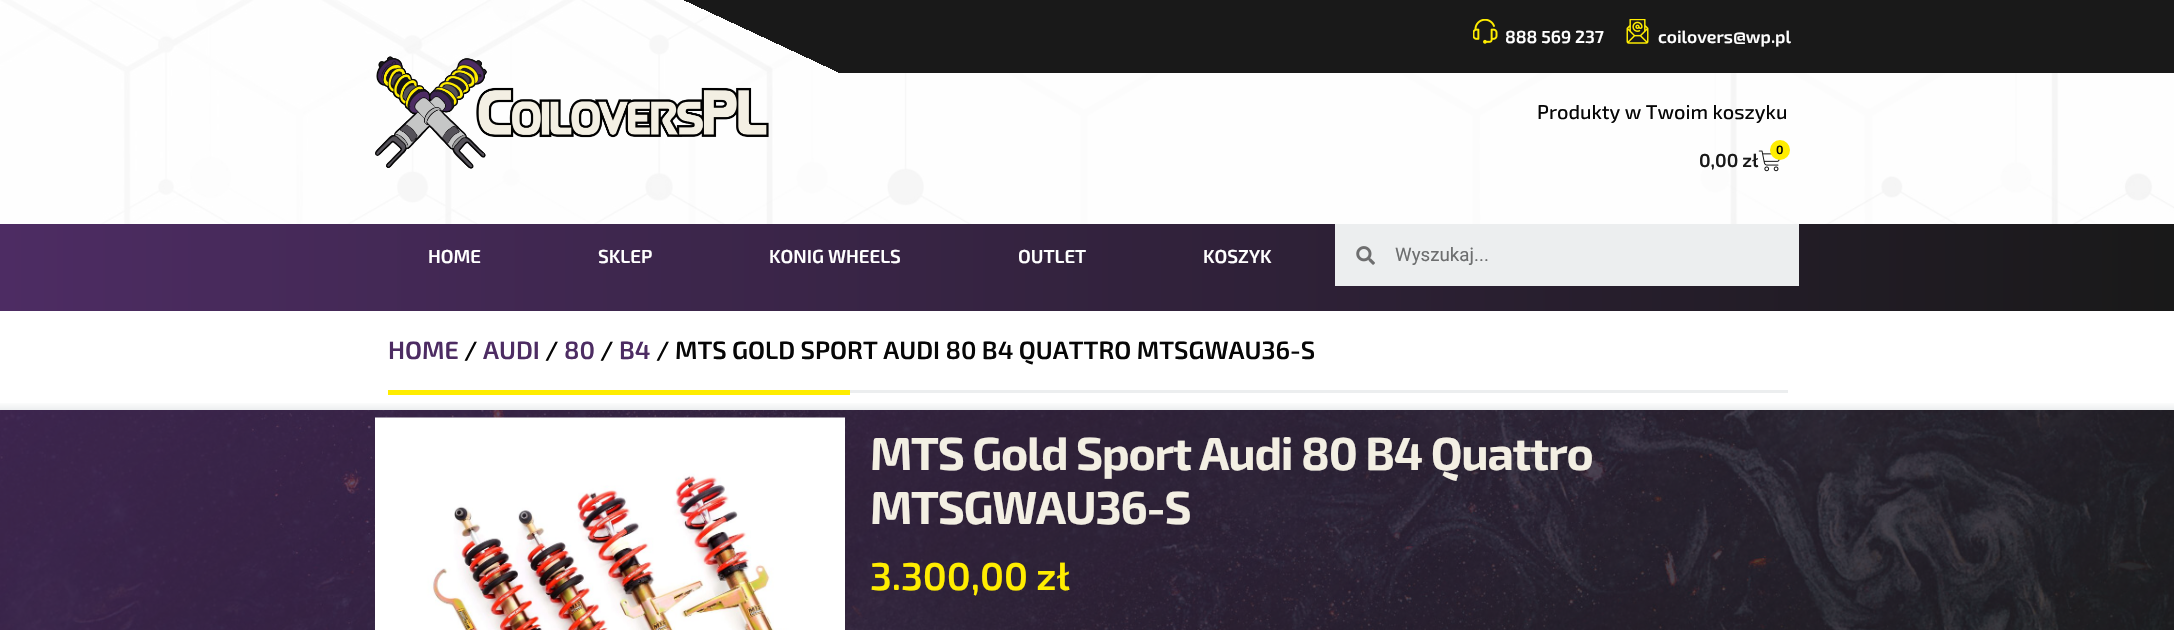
#include "include/core/SkBlurTypes.h"
#include "include/core/SkCanvas.h"
#include "include/core/SkData.h"
#include "include/core/SkFont.h"
#include "include/core/SkFontMgr.h"
#include "include/core/SkImage.h"
#include "include/core/SkMaskFilter.h"
#include "include/core/SkPaint.h"
#include "include/core/SkPathBuilder.h"
#include "include/core/SkTextBlob.h"
#include "include/effects/SkDashPathEffect.h"
#include "include/effects/SkGradientShader.h"
#include "include/utils/SkParsePath.h"

extern sk_sp<SkFontMgr> fontMgr;

static SkFont font(const char* family, int weight, float size, bool italic = false) {
    SkFontStyle style(weight, SkFontStyle::kNormal_Width,
        italic ? SkFontStyle::kItalic_Slant : SkFontStyle::kUpright_Slant);
    SkFont result(fontMgr->matchFamilyStyle(family, style), size);
    result.setSubpixel(true);
    return result;
}

static void drawLabel(SkCanvas* canvas, const char* s, float x, float y, const SkFont& font, SkColor color) {
    SkPaint ink(SkColor4f::FromColor(color));
    ink.setAntiAlias(true);
    canvas->drawString(s, x, y, font, ink);
}

static void drawTracked(SkCanvas* canvas, const char* s, float x, float y, const SkFont& font, const SkPaint& ink, float letter, float word) {
    std::vector<SkGlyphID> glyphs(font.countText(s, strlen(s), SkTextEncoding::kUTF8));
    std::vector<float> xs(glyphs.size());
    font.textToGlyphs(s, strlen(s), SkTextEncoding::kUTF8, glyphs);
    font.getXPos(glyphs, xs, x);
    float extra = 0;
    for (size_t i = 0; i < glyphs.size(); i++) {
        xs[i] += extra;
        extra += letter + word * (glyphs[i] == font.unicharToGlyph(' '));
    }
    canvas->drawTextBlob(SkTextBlob::MakeFromPosHGlyphs(glyphs, xs, y, font), 0, 0, ink);
}

static void fillRect(SkCanvas* canvas, float x, float y, float w, float h, SkColor color) {
    SkPaint ink(SkColor4f::FromColor(color));
    ink.setAntiAlias(true);
    canvas->drawRect(SkRect::MakeXYWH(x, y, w, h), ink);
}

static void drawPhoto(SkCanvas* canvas, const char* path, float x, float y, float w, float h) {
    auto image = SkImages::DeferredFromEncodedData(SkData::MakeFromFileName(path));
    canvas->drawImageRect(image, SkRect::MakeXYWH(x, y, w, h), SkSamplingOptions());
}

void draw(SkCanvas* canvas) {
    SkPaint paint;
    paint.setAntiAlias(true);
    canvas->clear(0xFFFFFFFF);
    drawPhoto(canvas, "assets/img3.png", 0, 0, 2174, 224);
    drawPhoto(canvas, "assets/img4.png", 375, 56, 394, 113);
    {
        const SkColor colors[] = {0xFF191919, 0x00191919};
        const float stops[] = {0.64f, 0.64f};
        const SkPoint ends[] = {{1296, -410}, {879, 483}};
        paint.setShader(SkGradientShader::MakeLinear(ends, colors, stops, 2, SkTileMode::kClamp));
        paint.setAlpha(255);
    }
    canvas->drawRect(SkRect::MakeXYWH(684, 0, 1490, 73), paint);
    drawPhoto(canvas, "assets/img1.png", 1473, 19, 25, 25);
    SkFont font1 = font("Exo 2", 600, 17.5f);
    drawLabel(canvas, "888 569 237", 1505, 43, font1, 0xFFFFFFFF);
    drawPhoto(canvas, "assets/img2.png", 1626, 19, 23, 25);
    drawLabel(canvas, "coilovers@wp.pl", 1658, 43, font1, 0xFFFFFFFF);
    SkFont font2 = font("Exo 2", 500, 20);
    drawLabel(canvas, "Produkty w Twoim koszyku", 1537, 119, font2, 0xFF060606);
    SkFont font3 = font("Exo 2", 600, 18.75f);
    drawLabel(canvas, "0,00 zł", 1699, 167, font3, 0xFF191919);
    drawPhoto(canvas, "assets/img5.png", 1758, 150, 22, 22);
    paint.setShader(nullptr);
    paint.setColor(0xFFFFED00);
    canvas->drawCircle(1780, 150, 10, paint);
    SkFont font4 = font("Exo 2", 600, 12);
    drawLabel(canvas, "0", 1776, 154, font4, 0xFF060606);
    {
        const SkColor colors[] = {0xFF4D2C63, 0xFF191919};
        const float stops[] = {0, 1};
        const SkPoint ends[] = {{0, 268}, {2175, 267}};
        paint.setShader(SkGradientShader::MakeLinear(ends, colors, stops, 2, SkTileMode::kClamp));
        paint.setAlpha(255);
    }
    canvas->drawRect(SkRect::MakeXYWH(0, 224, 2174, 87), paint);
    drawLabel(canvas, "HOME", 428, 263, font3, 0xFFFFFFFF);
    drawLabel(canvas, "SKLEP", 598, 263, font3, 0xFFFFFFFF);
    drawLabel(canvas, "KONIG WHEELS", 769, 263, font3, 0xFFFFFFFF);
    drawLabel(canvas, "OUTLET", 1018, 263, font3, 0xFFFFFFFF);
    drawLabel(canvas, "KOSZYK", 1203, 263, font3, 0xFFFFFFFF);
    fillRect(canvas, 1335, 224, 464, 62, 0xFFECEEEF);
    drawPhoto(canvas, "assets/img6.png", 1356, 246, 19, 19);
    SkFont font5 = font("Roboto", 400, 18.75f);
    drawLabel(canvas, "Wyszukaj...", 1395, 261, font5, 0xFF6D6E6F);
    {
        const SkColor colors[] = {0xFFFFFFFF, 0xFFECEEEF};
        const float stops[] = {0.9f, 1};
        const SkPoint ends[] = {{1088, 324}, {1088, 410}};
        paint.setShader(SkGradientShader::MakeLinear(ends, colors, stops, 2, SkTileMode::kClamp));
        paint.setAlpha(255);
    }
    canvas->drawRect(SkRect::MakeXYWH(0, 403, 2174, 7), paint);
    SkFont font6 = font("Exo 2", 600, 25);
    drawLabel(canvas, "HOME", 388, 359, font6, 0xFF4D2C63);
    drawLabel(canvas, "/", 464, 359, font6, 0xFF060606);
    drawLabel(canvas, "AUDI", 483, 359, font6, 0xFF4D2C63);
    drawLabel(canvas, "/", 545, 359, font6, 0xFF060606);
    drawLabel(canvas, "80", 564, 359, font6, 0xFF4D2C63);
    drawLabel(canvas, "/", 600, 359, font6, 0xFF060606);
    drawLabel(canvas, "B4", 619, 359, font6, 0xFF4D2C63);
    drawLabel(canvas, "/ MTS GOLD SPORT AUDI 80 B4 QUATTRO MTSGWAU36-S", 656, 359, font6, 0xFF060606);
    fillRect(canvas, 388, 390, 462, 5, 0xFFFFED00);
    fillRect(canvas, 850, 390, 938, 3, 0xFFECEEEF);
    {
        const SkColor colors[] = {0xFF4D2C63, 0xFF191919};
        const float stops[] = {0, 1};
        const SkPoint ends[] = {{557, -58}, {1618, 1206}};
        paint.setShader(SkGradientShader::MakeLinear(ends, colors, stops, 2, SkTileMode::kClamp));
        paint.setAlpha(255);
    }
    canvas->drawRect(SkRect::MakeXYWH(0, 410, 2174, 220), paint);
    drawPhoto(canvas, "assets/img7.png", 0, 410, 2174, 220);
    drawPhoto(canvas, "assets/img8.png", 375, 417, 470, 213);
    SkFont font7 = font("Exo 2", 700, 46.25f);
    paint.setShader(nullptr);
    paint.setColor(0xFFF3EFE3);
    drawTracked(canvas, "MTS Gold Sport Audi 80 B4 Quattro", 870, 470, font7, paint, -1.25f, 0);
    drawTracked(canvas, "MTSGWAU36-S", 870, 524, font7, paint, -1.25f, 0);
    SkFont font8 = font("Exo 2", 600, 38.75f);
    drawLabel(canvas, "3.300,00 zł", 870, 590, font8, 0xFFFFED00);
}
